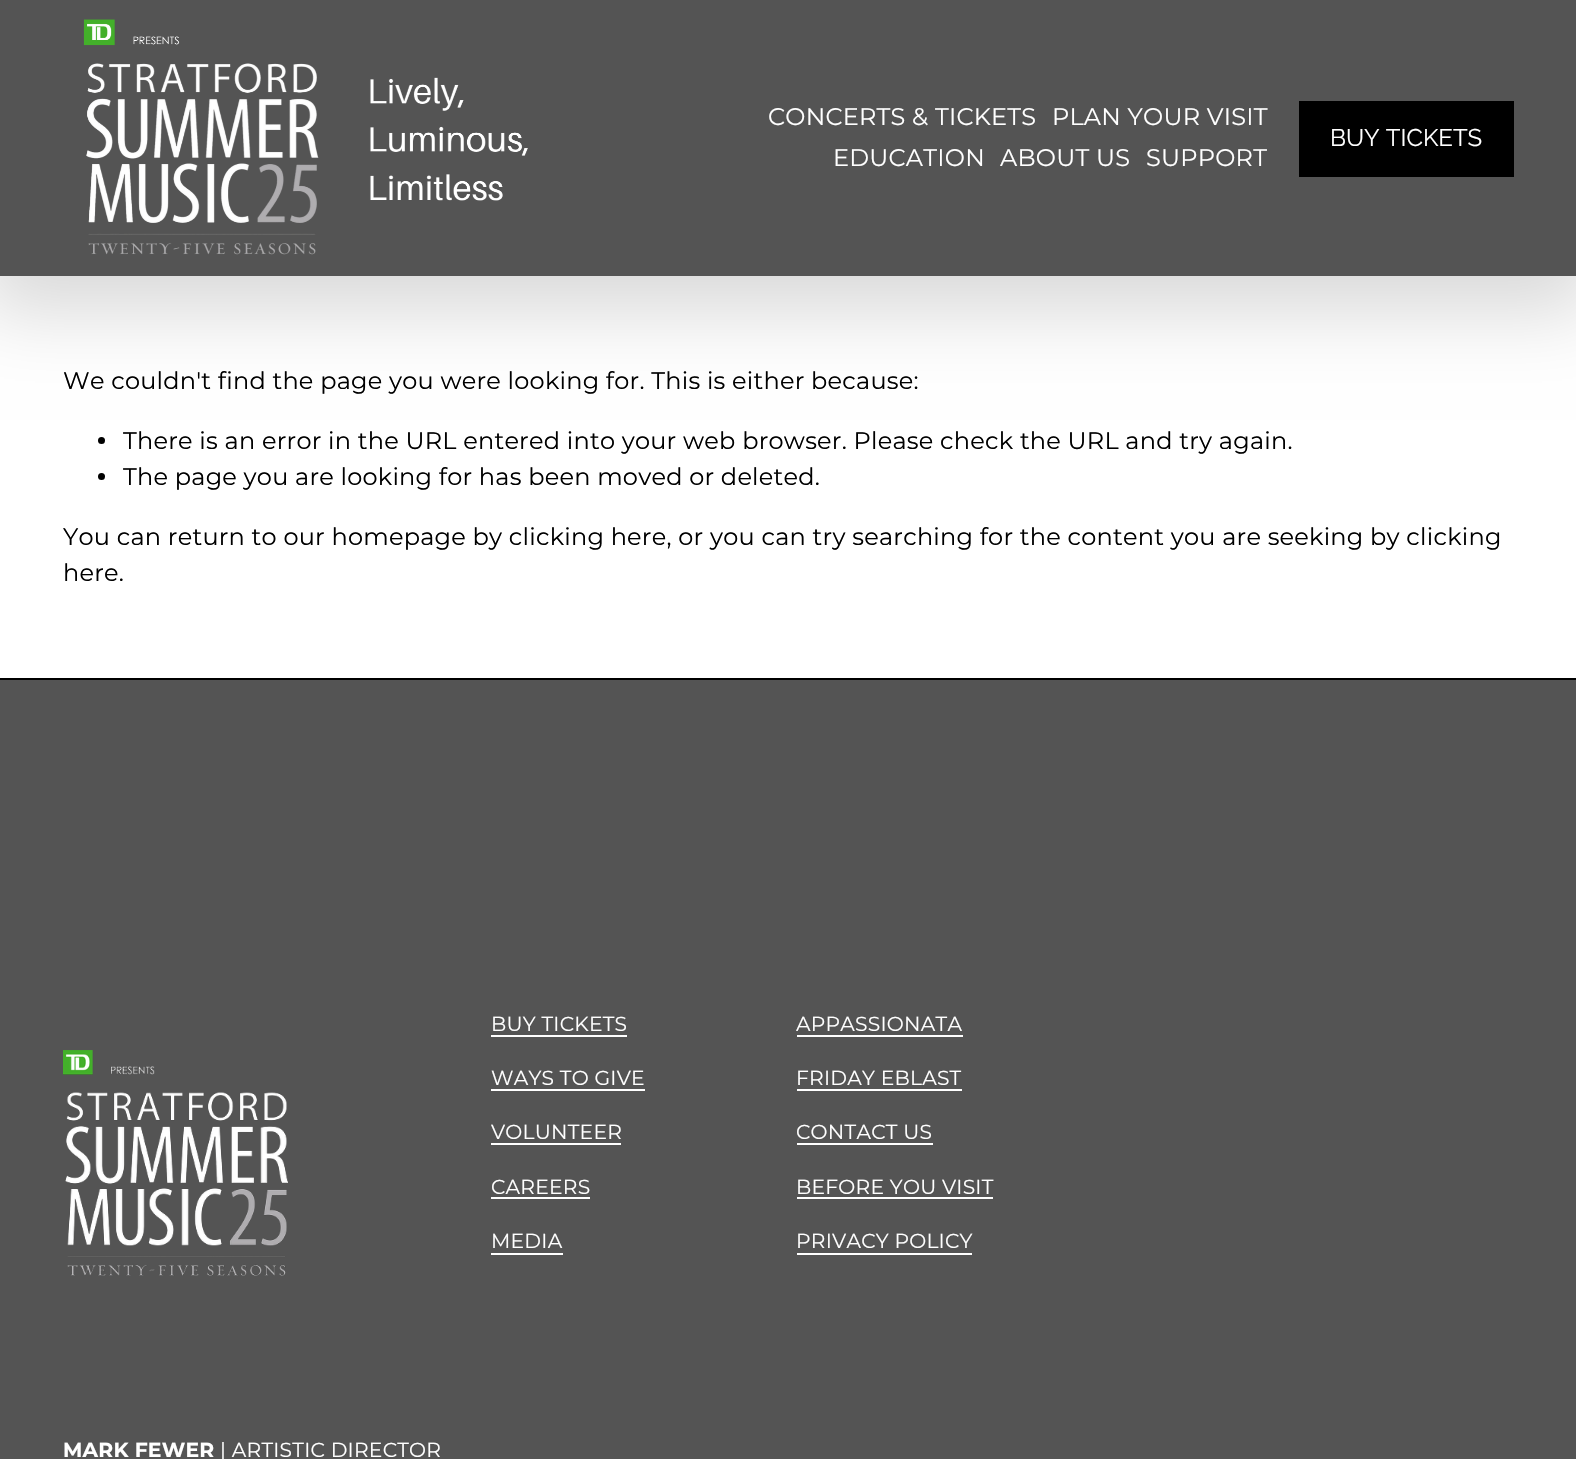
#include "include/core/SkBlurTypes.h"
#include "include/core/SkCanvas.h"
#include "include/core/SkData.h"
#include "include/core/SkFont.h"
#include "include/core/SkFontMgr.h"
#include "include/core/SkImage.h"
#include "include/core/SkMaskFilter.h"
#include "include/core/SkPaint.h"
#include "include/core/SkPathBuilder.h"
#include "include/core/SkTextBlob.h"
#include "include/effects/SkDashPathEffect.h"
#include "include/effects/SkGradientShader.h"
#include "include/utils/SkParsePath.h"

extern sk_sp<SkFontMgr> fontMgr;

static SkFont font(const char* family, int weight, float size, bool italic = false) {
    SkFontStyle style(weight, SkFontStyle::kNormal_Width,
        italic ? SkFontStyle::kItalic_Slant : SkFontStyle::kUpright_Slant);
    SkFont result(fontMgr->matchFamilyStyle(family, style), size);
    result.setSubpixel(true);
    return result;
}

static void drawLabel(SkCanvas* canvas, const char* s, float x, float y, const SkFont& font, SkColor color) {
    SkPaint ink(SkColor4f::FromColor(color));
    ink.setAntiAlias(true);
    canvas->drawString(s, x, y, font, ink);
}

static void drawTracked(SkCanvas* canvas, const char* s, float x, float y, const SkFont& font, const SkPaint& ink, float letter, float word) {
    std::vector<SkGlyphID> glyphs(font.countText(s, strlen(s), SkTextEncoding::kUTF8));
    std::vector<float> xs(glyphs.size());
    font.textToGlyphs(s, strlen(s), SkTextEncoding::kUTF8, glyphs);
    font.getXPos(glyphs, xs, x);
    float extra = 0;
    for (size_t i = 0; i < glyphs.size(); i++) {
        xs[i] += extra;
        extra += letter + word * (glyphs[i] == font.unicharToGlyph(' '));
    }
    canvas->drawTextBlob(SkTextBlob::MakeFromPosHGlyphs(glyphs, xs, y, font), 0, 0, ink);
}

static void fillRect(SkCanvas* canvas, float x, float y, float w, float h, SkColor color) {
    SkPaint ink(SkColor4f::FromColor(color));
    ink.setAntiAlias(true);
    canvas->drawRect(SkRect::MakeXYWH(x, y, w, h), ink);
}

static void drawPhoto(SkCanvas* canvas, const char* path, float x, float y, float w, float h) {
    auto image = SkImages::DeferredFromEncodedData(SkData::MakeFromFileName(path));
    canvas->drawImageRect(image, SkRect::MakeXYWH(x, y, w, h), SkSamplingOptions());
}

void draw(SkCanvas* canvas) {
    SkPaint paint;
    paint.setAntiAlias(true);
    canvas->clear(0xFFFFFFFF);
    paint.setColor(0x26000000);
    paint.setMaskFilter(SkMaskFilter::MakeBlur(kNormal_SkBlurStyle, 36));
    canvas->drawRect(SkRect::MakeXYWH(-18, 0, 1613, 312), paint);
    paint.setMaskFilter(nullptr);
    fillRect(canvas, 0, 0, 1576, 276, 0xFF545454);
    drawPhoto(canvas, "assets/img1.png", 83, 19, 445, 236);
    SkFont font1 = font("Montserrat", 400, 24);
    paint.setColor(0xFFFFFFFF);
    drawTracked(canvas, "CONCERTS & TICKETS", 768, 125, font1, paint, 0.24f, 0);
    drawTracked(canvas, "PLAN YOUR VISIT", 1052, 125, font1, paint, 0.24f, 0);
    drawTracked(canvas, "EDUCATION", 833, 166, font1, paint, 0.24f, 0);
    drawTracked(canvas, "ABOUT US", 1000, 166, font1, paint, 0.24f, 0);
    drawTracked(canvas, "SUPPORT", 1146, 166, font1, paint, 0.24f, 0);
    fillRect(canvas, 1299, 101, 215, 76, 0xFF000000);
    SkFont font2 = font("Raleway", 100, 24);
    drawLabel(canvas, "BUY TICKETS", 1330, 146, font2, 0xFFFFFFFF);
    paint.setColor(0xFF000000);
    drawTracked(canvas, "We couldn't find the page you were looking for. This is either because:", 63, 389, font1, paint, 0.24f, 0);
    canvas->drawCircle(101.5f, 440.5f, 3.5f, paint);
    drawTracked(canvas, "There is an error in the URL entered into your web browser. Please check the URL and try again.", 123, 449, font1, paint, 0.24f, 0);
    canvas->drawCircle(101.5f, 476.5f, 3.5f, paint);
    drawTracked(canvas, "The page you are looking for has been moved or deleted.", 123, 485, font1, paint, 0.24f, 0);
    drawTracked(canvas, "You can return to our homepage by clicking here, or you can try searching for the content you are seeking by clicking", 63, 545, font1, paint, 0.24f, 0);
    drawTracked(canvas, "here.", 63, 581, font1, paint, 0.24f, 0);
    fillRect(canvas, 0, 678, 1576, 2, 0xFF000000);
    fillRect(canvas, 0, 680, 1576, 779, 0xFF545454);
    drawPhoto(canvas, "assets/img2.png", 63, 1050, 225, 226);
    SkFont font3 = font("Montserrat", 400, 20.25f);
    paint.setColor(0xFFFFFFFF);
    drawTracked(canvas, "BUY TICKETS", 491, 1031, font3, paint, 0.24f, 0);
    fillRect(canvas, 491, 1035, 136, 2, 0xFFFFFFFF);
    drawTracked(canvas, "WAYS TO GIVE", 491, 1085, font3, paint, 0.24f, 0);
    fillRect(canvas, 491, 1089, 154, 2, 0xFFFFFFFF);
    drawTracked(canvas, "VOLUNTEER", 491, 1139, font3, paint, 0.24f, 0);
    fillRect(canvas, 491, 1143, 130, 2, 0xFFFFFFFF);
    drawTracked(canvas, "CAREERS", 491, 1194, font3, paint, 0.24f, 0);
    fillRect(canvas, 491, 1197, 99, 2, 0xFFFFFFFF);
    drawTracked(canvas, "MEDIA", 491, 1248, font3, paint, 0.24f, 0);
    fillRect(canvas, 491, 1253, 72, 2, 0xFFFFFFFF);
    drawTracked(canvas, "APPASSIONATA", 796, 1031, font3, paint, 0.24f, 0);
    fillRect(canvas, 797, 1035, 166, 2, 0xFFFFFFFF);
    drawTracked(canvas, "FRIDAY EBLAST", 796, 1085, font3, paint, 0.24f, 0);
    fillRect(canvas, 797, 1089, 165, 2, 0xFFFFFFFF);
    drawTracked(canvas, "CONTACT US", 796, 1139, font3, paint, 0.24f, 0);
    fillRect(canvas, 797, 1143, 136, 2, 0xFFFFFFFF);
    drawTracked(canvas, "BEFORE YOU VISIT", 796, 1194, font3, paint, 0.24f, 0);
    fillRect(canvas, 797, 1197, 196, 2, 0xFFFFFFFF);
    drawTracked(canvas, "PRIVACY POLICY", 796, 1248, font3, paint, 0.24f, 0);
    fillRect(canvas, 797, 1253, 175, 2, 0xFFFFFFFF);
    SkFont font4 = font("Montserrat", 700, 20.25f);
    drawTracked(canvas, "MARK FEWER", 63, 1457, font4, paint, 0.24f, 0);
    drawTracked(canvas, "| ARTISTIC DIRECTOR", 220, 1457, font3, paint, 0.24f, 0);
}
